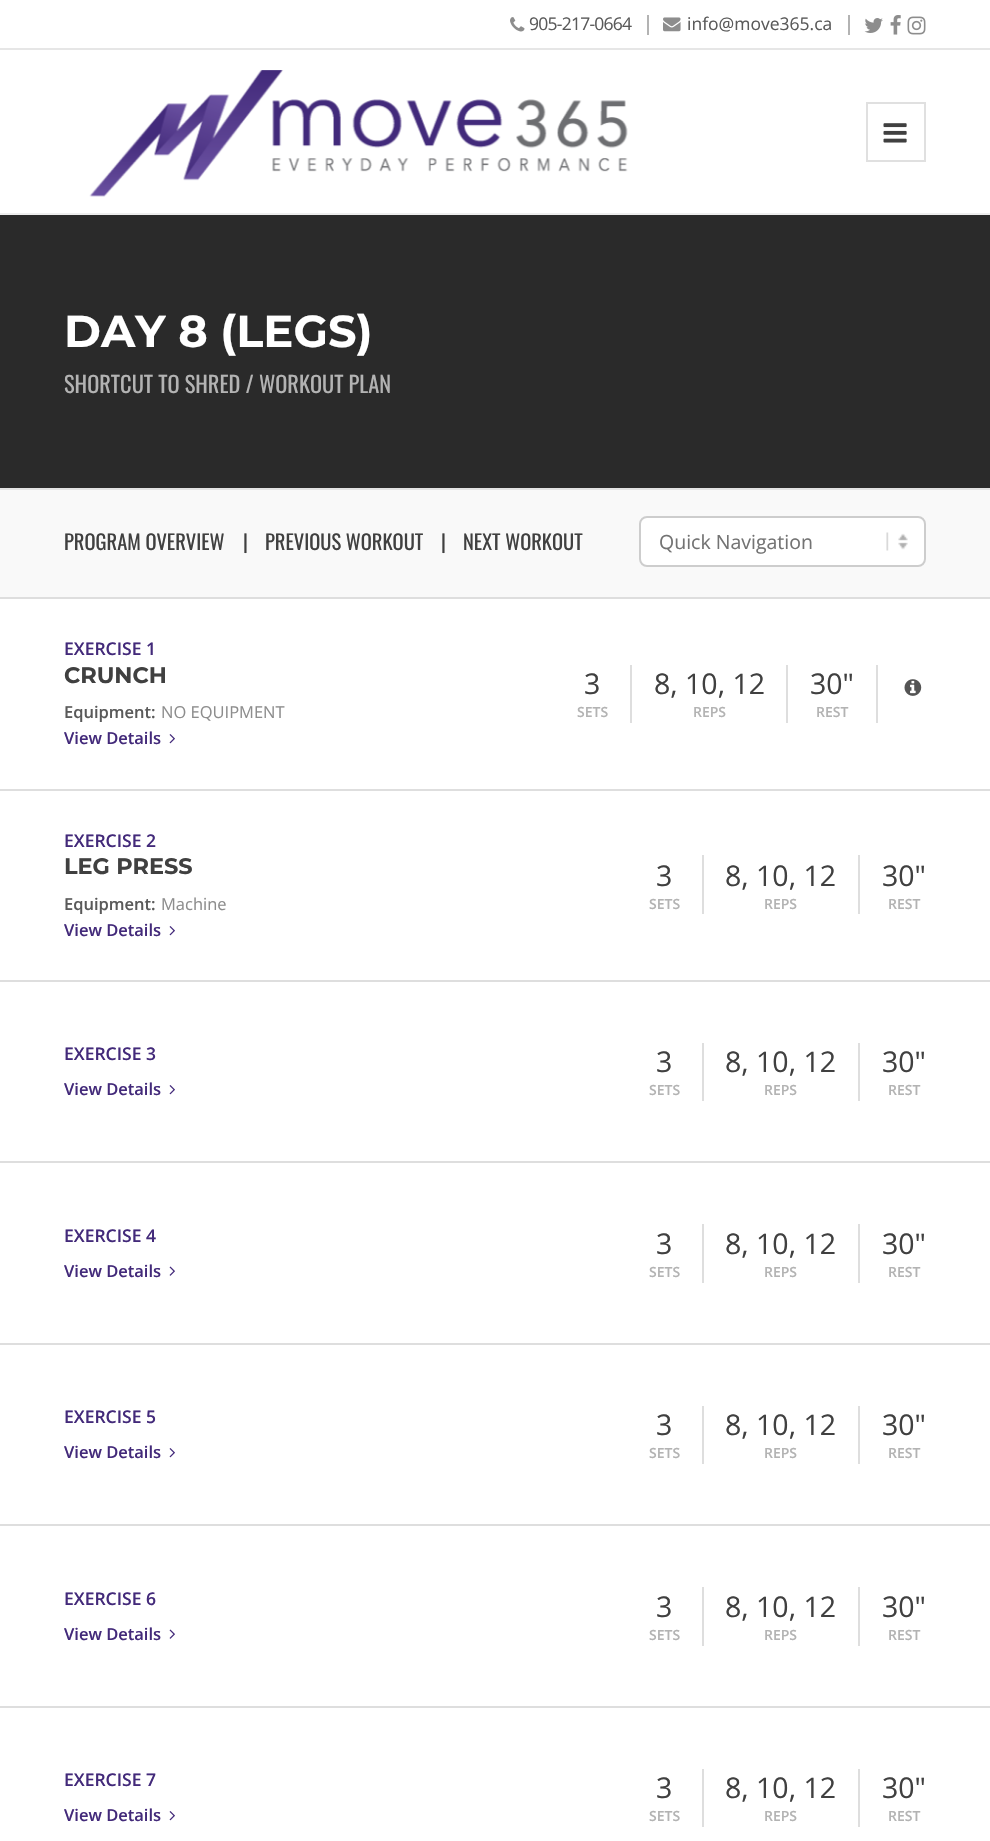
#include "include/core/SkBlurTypes.h"
#include "include/core/SkCanvas.h"
#include "include/core/SkData.h"
#include "include/core/SkFont.h"
#include "include/core/SkFontMgr.h"
#include "include/core/SkImage.h"
#include "include/core/SkMaskFilter.h"
#include "include/core/SkPaint.h"
#include "include/core/SkPathBuilder.h"
#include "include/core/SkTextBlob.h"
#include "include/effects/SkDashPathEffect.h"
#include "include/effects/SkGradientShader.h"
#include "include/utils/SkParsePath.h"

extern sk_sp<SkFontMgr> fontMgr;

static SkFont font(const char* family, int weight, float size, bool italic = false) {
    SkFontStyle style(weight, SkFontStyle::kNormal_Width,
        italic ? SkFontStyle::kItalic_Slant : SkFontStyle::kUpright_Slant);
    SkFont result(fontMgr->matchFamilyStyle(family, style), size);
    result.setSubpixel(true);
    return result;
}

static void drawLabel(SkCanvas* canvas, const char* s, float x, float y, const SkFont& font, SkColor color) {
    SkPaint ink(SkColor4f::FromColor(color));
    ink.setAntiAlias(true);
    canvas->drawString(s, x, y, font, ink);
}

static void drawTracked(SkCanvas* canvas, const char* s, float x, float y, const SkFont& font, const SkPaint& ink, float letter, float word) {
    std::vector<SkGlyphID> glyphs(font.countText(s, strlen(s), SkTextEncoding::kUTF8));
    std::vector<float> xs(glyphs.size());
    font.textToGlyphs(s, strlen(s), SkTextEncoding::kUTF8, glyphs);
    font.getXPos(glyphs, xs, x);
    float extra = 0;
    for (size_t i = 0; i < glyphs.size(); i++) {
        xs[i] += extra;
        extra += letter + word * (glyphs[i] == font.unicharToGlyph(' '));
    }
    canvas->drawTextBlob(SkTextBlob::MakeFromPosHGlyphs(glyphs, xs, y, font), 0, 0, ink);
}

static void fillRect(SkCanvas* canvas, float x, float y, float w, float h, SkColor color) {
    SkPaint ink(SkColor4f::FromColor(color));
    ink.setAntiAlias(true);
    canvas->drawRect(SkRect::MakeXYWH(x, y, w, h), ink);
}

static void fillRRect(SkCanvas* canvas, float x, float y, float w, float h, float radius, SkColor color) {
    SkPaint ink(SkColor4f::FromColor(color));
    ink.setAntiAlias(true);
    canvas->drawRoundRect(SkRect::MakeXYWH(x, y, w, h), radius, radius, ink);
}

static void drawPhoto(SkCanvas* canvas, const char* path, float x, float y, float w, float h) {
    auto image = SkImages::DeferredFromEncodedData(SkData::MakeFromFileName(path));
    canvas->drawImageRect(image, SkRect::MakeXYWH(x, y, w, h), SkSamplingOptions());
}

void draw(SkCanvas* canvas) {
    SkPaint paint;
    paint.setAntiAlias(true);
    canvas->clear(0xFFFFFFFF);
    fillRect(canvas, 0, 48, 990, 2, 0xFFE6E6E6);
    fillRect(canvas, 647, 15, 2, 20, 0xFFB3B3B3);
    drawPhoto(canvas, "assets/img1.png", 510, 17, 15, 15);
    SkFont font1 = font("Open Sans", 400, 17.5f);
    paint.setColor(0xFF5A5A5A);
    drawTracked(canvas, "905-217-0664", 529, 30, font1, paint, -0.75f, 0);
    fillRect(canvas, 848, 15, 2, 20, 0xFFB3B3B3);
    drawPhoto(canvas, "assets/img2.png", 663, 17, 18, 15);
    drawLabel(canvas, "info@move365.ca", 687, 30, font1, 0xFF5A5A5A);
    drawPhoto(canvas, "assets/img3.png", 864, 18, 19, 15);
    drawPhoto(canvas, "assets/img4.png", 890, 15, 11, 20);
    drawPhoto(canvas, "assets/img5.png", 907, 16, 19, 19);
    fillRect(canvas, 0, 213, 990, 2, 0xFFEEEEEE);
    drawPhoto(canvas, "assets/img6.png", 89, 70, 539, 127);
    paint.setStroke(true);
    paint.setStrokeWidth(2);
    paint.setColor(0xFFE0E0E0);
    canvas->drawRect(SkRect::MakeXYWH(867, 103, 58, 58), paint);
    drawPhoto(canvas, "assets/img7.png", 883, 123, 24, 20);
    fillRect(canvas, 0, 215, 990, 273, 0xFF2A2A2A);
    SkFont font2 = font("Montserrat", 100, 44.75f);
    drawLabel(canvas, "DAY 8 (LEGS)", 64, 347, font2, 0xFFFFFFFF);
    SkFont font3 = font("Oswald", 400, 22.4f);
    drawLabel(canvas, "SHORTCUT TO SHRED / WORKOUT PLAN", 64, 393, font3, 0xFFB3B3B3);
    fillRect(canvas, 0, 490, 990, 107, 0xFFF9F9F9);
    fillRect(canvas, 0, 488, 990, 2, 0xFFE3E3E3);
    SkFont font4 = font("Oswald", 400, 20.5f);
    drawLabel(canvas, "PROGRAM OVERVIEW", 64, 550, font4, 0xFF404040);
    drawLabel(canvas, "|", 243, 550, font4, 0xFF404040);
    drawLabel(canvas, "PREVIOUS WORKOUT", 265, 550, font4, 0xFF404040);
    drawLabel(canvas, "|", 441, 550, font4, 0xFF404040);
    drawLabel(canvas, "NEXT WORKOUT", 463, 550, font4, 0xFF404040);
    fillRRect(canvas, 639, 516, 287, 51, 8, 0xFFFFFFFF);
    drawPhoto(canvas, "assets/img8.png", 886, 532, 22, 19);
    paint.setColor(0xFFCDCDCD);
    canvas->drawRoundRect(SkRect::MakeXYWH(640, 517, 285, 49), 7, 7, paint);
    SkFont font5 = font("Open Sans", 400, 19.5f);
    drawLabel(canvas, "Quick Navigation", 659, 549, font5, 0xFF737373);
    fillRect(canvas, 0, 597, 990, 2, 0xFFDEDEDE);
    fillRect(canvas, 0, 789, 990, 2, 0xFFDEDEDE);
    SkFont font6 = font("Open Sans", 600, 17.5f);
    drawLabel(canvas, "EXERCISE 1", 64, 655, font6, 0xFF432A7A);
    SkFont font7 = font("Montserrat", 100, 22.4f);
    drawLabel(canvas, "CRUNCH", 64, 683, font7, 0xFF404040);
    SkFont font8 = font("Open Sans", 600, 16.5f);
    drawLabel(canvas, "Equipment:", 64, 718, font8, 0xFF5A5A5A);
    SkFont font9 = font("Open Sans", 400, 16.5f);
    drawLabel(canvas, "NO EQUIPMENT", 161, 718, font9, 0xFF8D8D8D);
    drawLabel(canvas, "View Details", 64, 744, font8, 0xFF432A7A);
    drawPhoto(canvas, "assets/img9.png", 169, 734, 6, 10);
    SkFont font10 = font("Open Sans", 400, 28.5f);
    drawLabel(canvas, "3", 584, 694, font10, 0xFF404040);
    SkFont font11 = font("Open Sans", 600, 14);
    drawLabel(canvas, "SETS", 577, 717, font11, 0xFFB3B3B3);
    fillRect(canvas, 630, 665, 2, 58, 0xFFDEDEDE);
    drawLabel(canvas, "8, 10, 12", 654, 694, font10, 0xFF404040);
    drawLabel(canvas, "REPS", 693, 717, font11, 0xFFB3B3B3);
    fillRect(canvas, 786, 665, 2, 58, 0xFFDEDEDE);
    drawLabel(canvas, "30\"", 810, 694, font10, 0xFF404040);
    drawLabel(canvas, "REST", 816, 717, font11, 0xFFB3B3B3);
    fillRect(canvas, 876, 665, 2, 58, 0xFFDEDEDE);
    drawPhoto(canvas, "assets/img10.png", 904, 679, 18, 17);
    fillRect(canvas, 0, 980, 990, 2, 0xFFDEDEDE);
    drawLabel(canvas, "EXERCISE 2", 64, 847, font6, 0xFF432A7A);
    drawLabel(canvas, "LEG PRESS", 64, 874, font7, 0xFF404040);
    drawLabel(canvas, "Equipment:", 64, 910, font8, 0xFF5A5A5A);
    drawLabel(canvas, "Machine", 161, 910, font9, 0xFF8D8D8D);
    drawLabel(canvas, "View Details", 64, 936, font8, 0xFF432A7A);
    drawPhoto(canvas, "assets/img9.png", 169, 926, 6, 10);
    drawLabel(canvas, "3", 656, 886, font10, 0xFF404040);
    drawLabel(canvas, "SETS", 649, 909, font11, 0xFFB3B3B3);
    fillRect(canvas, 702, 855, 2, 59, 0xFFDEDEDE);
    drawLabel(canvas, "8, 10, 12", 725, 886, font10, 0xFF404040);
    drawLabel(canvas, "REPS", 764, 909, font11, 0xFFB3B3B3);
    fillRect(canvas, 858, 855, 2, 59, 0xFFDEDEDE);
    drawLabel(canvas, "30\"", 882, 886, font10, 0xFF404040);
    drawLabel(canvas, "REST", 888, 909, font11, 0xFFB3B3B3);
    fillRect(canvas, 0, 1161, 990, 2, 0xFFDEDEDE);
    drawLabel(canvas, "EXERCISE 3", 64, 1060, font6, 0xFF432A7A);
    drawLabel(canvas, "View Details", 64, 1095, font8, 0xFF432A7A);
    drawPhoto(canvas, "assets/img9.png", 169, 1085, 6, 10);
    drawLabel(canvas, "3", 656, 1072, font10, 0xFF404040);
    drawLabel(canvas, "SETS", 649, 1095, font11, 0xFFB3B3B3);
    fillRect(canvas, 702, 1043, 2, 58, 0xFFDEDEDE);
    drawLabel(canvas, "8, 10, 12", 725, 1072, font10, 0xFF404040);
    drawLabel(canvas, "REPS", 764, 1095, font11, 0xFFB3B3B3);
    fillRect(canvas, 858, 1043, 2, 58, 0xFFDEDEDE);
    drawLabel(canvas, "30\"", 882, 1072, font10, 0xFF404040);
    drawLabel(canvas, "REST", 888, 1095, font11, 0xFFB3B3B3);
    fillRect(canvas, 0, 1343, 990, 2, 0xFFDEDEDE);
    drawLabel(canvas, "EXERCISE 4", 64, 1242, font6, 0xFF432A7A);
    drawLabel(canvas, "View Details", 64, 1277, font8, 0xFF432A7A);
    drawPhoto(canvas, "assets/img11.png", 169, 1266, 6, 10);
    drawLabel(canvas, "3", 656, 1254, font10, 0xFF404040);
    drawLabel(canvas, "SETS", 649, 1277, font11, 0xFFB3B3B3);
    fillRect(canvas, 702, 1224, 2, 59, 0xFFDEDEDE);
    drawLabel(canvas, "8, 10, 12", 725, 1254, font10, 0xFF404040);
    drawLabel(canvas, "REPS", 764, 1277, font11, 0xFFB3B3B3);
    fillRect(canvas, 858, 1224, 2, 59, 0xFFDEDEDE);
    drawLabel(canvas, "30\"", 882, 1254, font10, 0xFF404040);
    drawLabel(canvas, "REST", 888, 1277, font11, 0xFFB3B3B3);
    fillRect(canvas, 0, 1524, 990, 2, 0xFFDEDEDE);
    drawLabel(canvas, "EXERCISE 5", 64, 1423, font6, 0xFF432A7A);
    drawLabel(canvas, "View Details", 64, 1458, font8, 0xFF432A7A);
    drawPhoto(canvas, "assets/img9.png", 169, 1448, 6, 10);
    drawLabel(canvas, "3", 656, 1435, font10, 0xFF404040);
    drawLabel(canvas, "SETS", 649, 1458, font11, 0xFFB3B3B3);
    fillRect(canvas, 702, 1406, 2, 58, 0xFFDEDEDE);
    drawLabel(canvas, "8, 10, 12", 725, 1435, font10, 0xFF404040);
    drawLabel(canvas, "REPS", 764, 1458, font11, 0xFFB3B3B3);
    fillRect(canvas, 858, 1406, 2, 58, 0xFFDEDEDE);
    drawLabel(canvas, "30\"", 882, 1435, font10, 0xFF404040);
    drawLabel(canvas, "REST", 888, 1458, font11, 0xFFB3B3B3);
    fillRect(canvas, 0, 1706, 990, 2, 0xFFDEDEDE);
    drawLabel(canvas, "EXERCISE 6", 64, 1605, font6, 0xFF432A7A);
    drawLabel(canvas, "View Details", 64, 1640, font8, 0xFF432A7A);
    drawPhoto(canvas, "assets/img11.png", 169, 1629, 6, 10);
    drawLabel(canvas, "3", 656, 1617, font10, 0xFF404040);
    drawLabel(canvas, "SETS", 649, 1640, font11, 0xFFB3B3B3);
    fillRect(canvas, 702, 1587, 2, 59, 0xFFDEDEDE);
    drawLabel(canvas, "8, 10, 12", 725, 1617, font10, 0xFF404040);
    drawLabel(canvas, "REPS", 764, 1640, font11, 0xFFB3B3B3);
    fillRect(canvas, 858, 1587, 2, 59, 0xFFDEDEDE);
    drawLabel(canvas, "30\"", 882, 1617, font10, 0xFF404040);
    drawLabel(canvas, "REST", 888, 1640, font11, 0xFFB3B3B3);
    drawLabel(canvas, "EXERCISE 7", 64, 1786, font6, 0xFF432A7A);
    drawLabel(canvas, "View Details", 64, 1821, font8, 0xFF432A7A);
    drawPhoto(canvas, "assets/img9.png", 169, 1811, 6, 10);
    drawLabel(canvas, "3", 656, 1798, font10, 0xFF404040);
    drawLabel(canvas, "SETS", 649, 1821, font11, 0xFFB3B3B3);
    fillRect(canvas, 702, 1769, 2, 58, 0xFFDEDEDE);
    drawLabel(canvas, "8, 10, 12", 725, 1798, font10, 0xFF404040);
    drawLabel(canvas, "REPS", 764, 1821, font11, 0xFFB3B3B3);
    fillRect(canvas, 858, 1769, 2, 58, 0xFFDEDEDE);
    drawLabel(canvas, "30\"", 882, 1798, font10, 0xFF404040);
    drawLabel(canvas, "REST", 888, 1821, font11, 0xFFB3B3B3);
}
